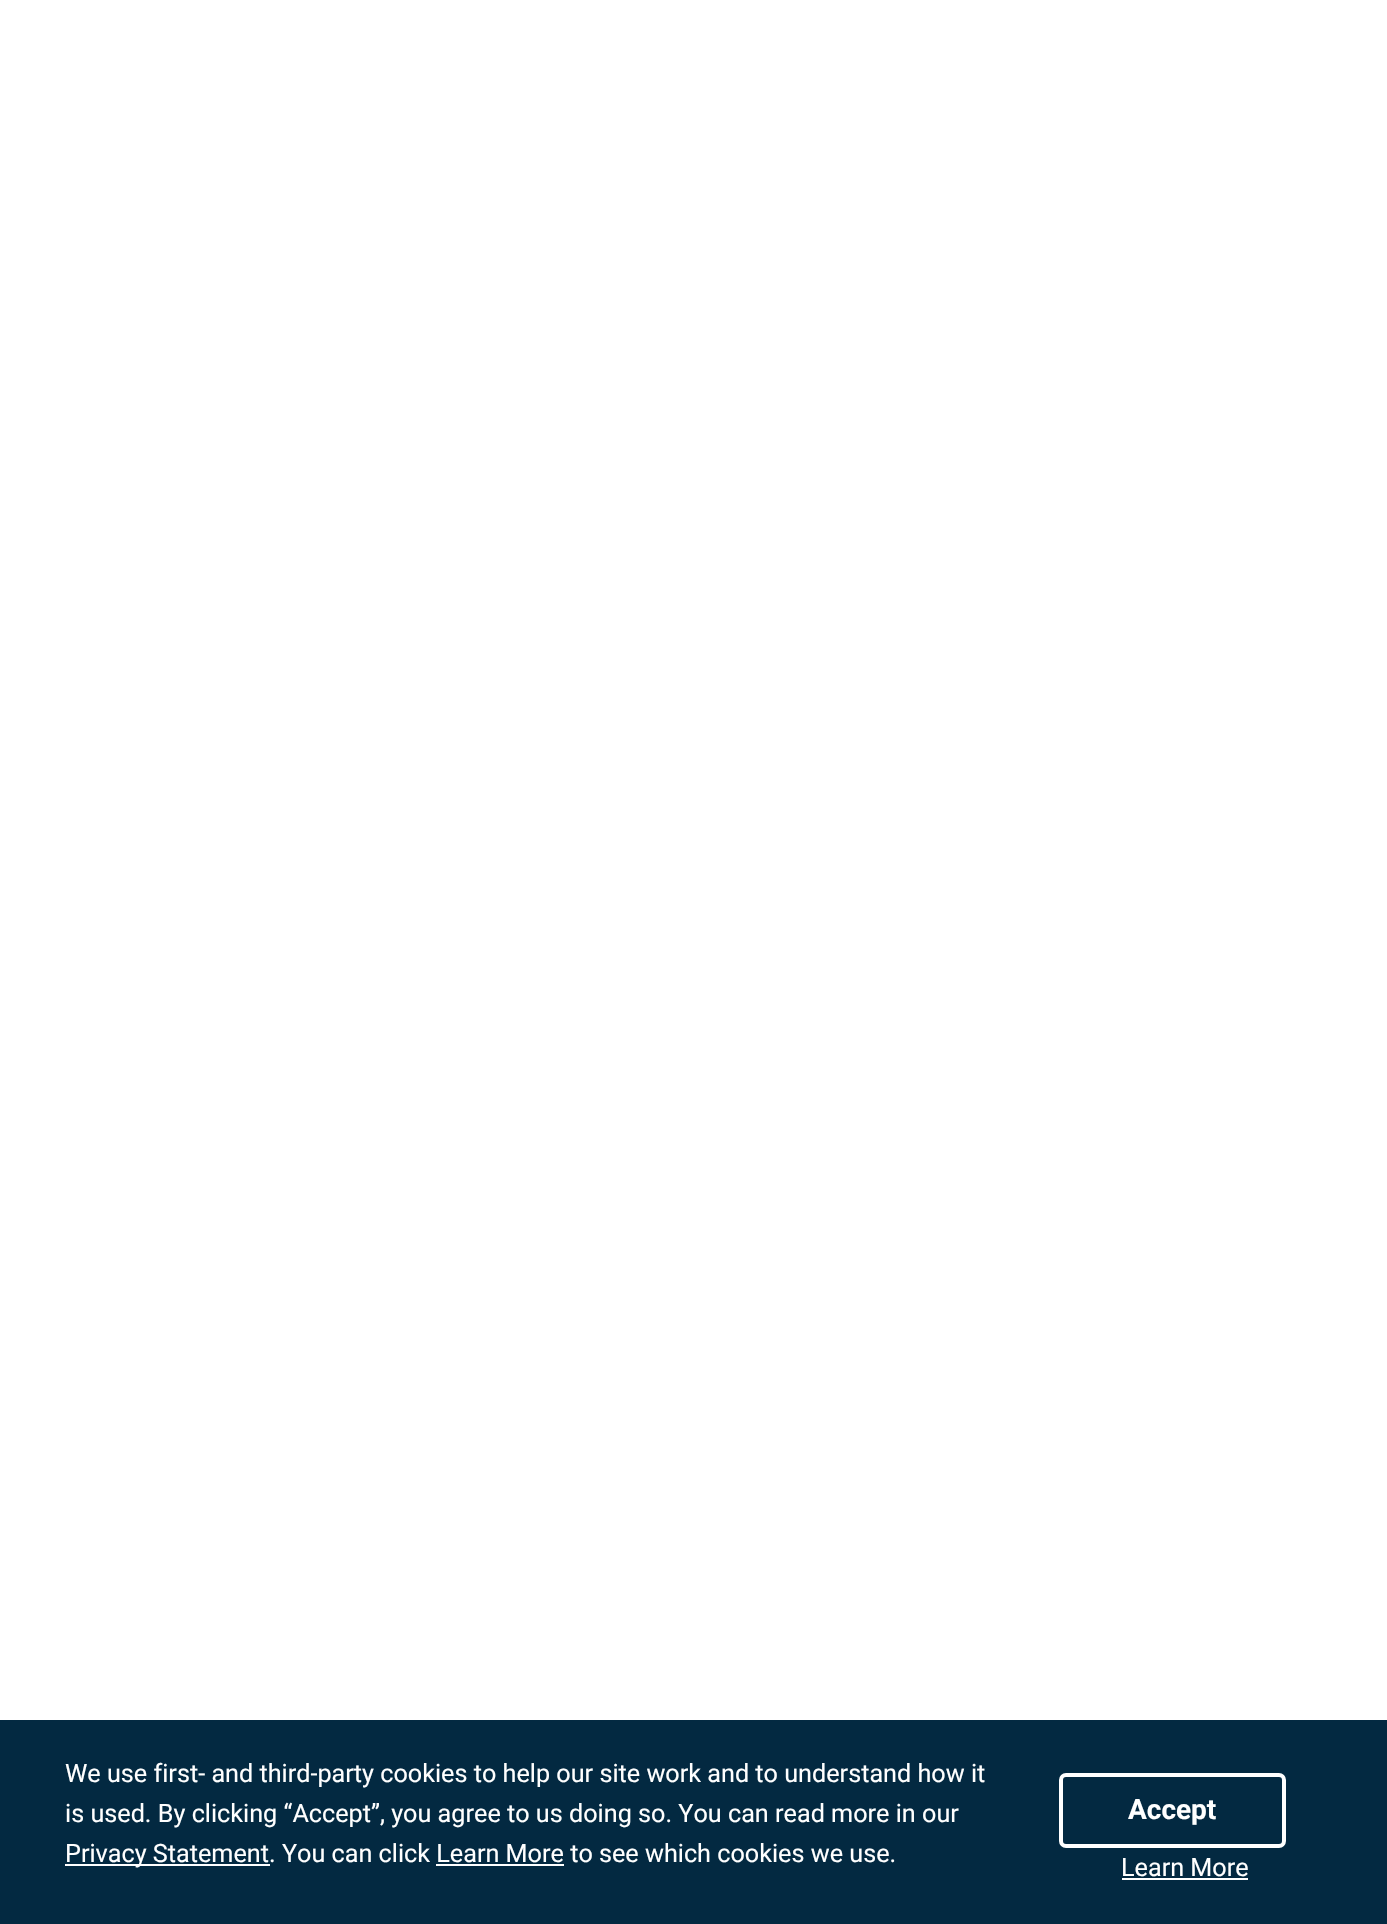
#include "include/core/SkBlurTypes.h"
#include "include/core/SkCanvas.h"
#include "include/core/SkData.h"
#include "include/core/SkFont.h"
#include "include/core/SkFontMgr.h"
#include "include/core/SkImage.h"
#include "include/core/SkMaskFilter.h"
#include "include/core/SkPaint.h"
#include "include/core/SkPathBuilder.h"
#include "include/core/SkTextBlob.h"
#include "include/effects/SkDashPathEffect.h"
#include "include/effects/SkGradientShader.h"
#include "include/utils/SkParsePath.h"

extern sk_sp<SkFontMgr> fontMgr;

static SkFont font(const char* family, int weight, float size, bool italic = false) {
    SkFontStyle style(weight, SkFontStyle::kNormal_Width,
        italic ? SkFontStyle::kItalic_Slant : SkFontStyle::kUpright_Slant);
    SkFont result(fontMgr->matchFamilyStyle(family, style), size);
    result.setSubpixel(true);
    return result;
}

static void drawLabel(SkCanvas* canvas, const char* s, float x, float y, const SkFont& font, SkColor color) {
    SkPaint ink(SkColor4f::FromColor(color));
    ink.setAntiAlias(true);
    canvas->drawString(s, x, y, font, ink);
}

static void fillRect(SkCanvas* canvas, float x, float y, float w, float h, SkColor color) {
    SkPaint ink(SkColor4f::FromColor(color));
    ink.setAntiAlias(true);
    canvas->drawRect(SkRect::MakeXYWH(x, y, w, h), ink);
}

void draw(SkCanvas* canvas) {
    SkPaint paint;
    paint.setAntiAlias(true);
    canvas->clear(0xFFFFFFFF);
    fillRect(canvas, 0, 1720, 1387, 204, 0xFF032941);
    SkFont font1 = font("Roboto", 400, 25.2f);
    drawLabel(canvas, "We use first- and third-party cookies to help our site work and to understand how it", 65, 1782, font1, 0xFFFFFFFF);
    drawLabel(canvas, "is used. By clicking “Accept”, you agree to us doing so. You can read more in our", 65, 1822, font1, 0xFFFFFFFF);
    fillRect(canvas, 65, 1864, 205, 2, 0xFFFFFFFF);
    drawLabel(canvas, "Privacy Statement. You can click Learn More to see which cookies we use.", 65, 1862, font1, 0xFFFFFFFF);
    fillRect(canvas, 436, 1864, 128, 2, 0xFFFFFFFF);
    paint.setStroke(true);
    paint.setStrokeWidth(4);
    paint.setColor(0xFFFFFFFF);
    canvas->drawRoundRect(SkRect::MakeXYWH(1061, 1775, 223, 71), 5, 5, paint);
    SkFont font2 = font("Roboto", 700, 28);
    drawLabel(canvas, "Accept", 1128, 1819, font2, 0xFFFFFFFF);
    drawLabel(canvas, "Learn More", 1121, 1876, font1, 0xFFFFFFFF);
    fillRect(canvas, 1122, 1878, 126, 2, 0xFFFFFFFF);
}
